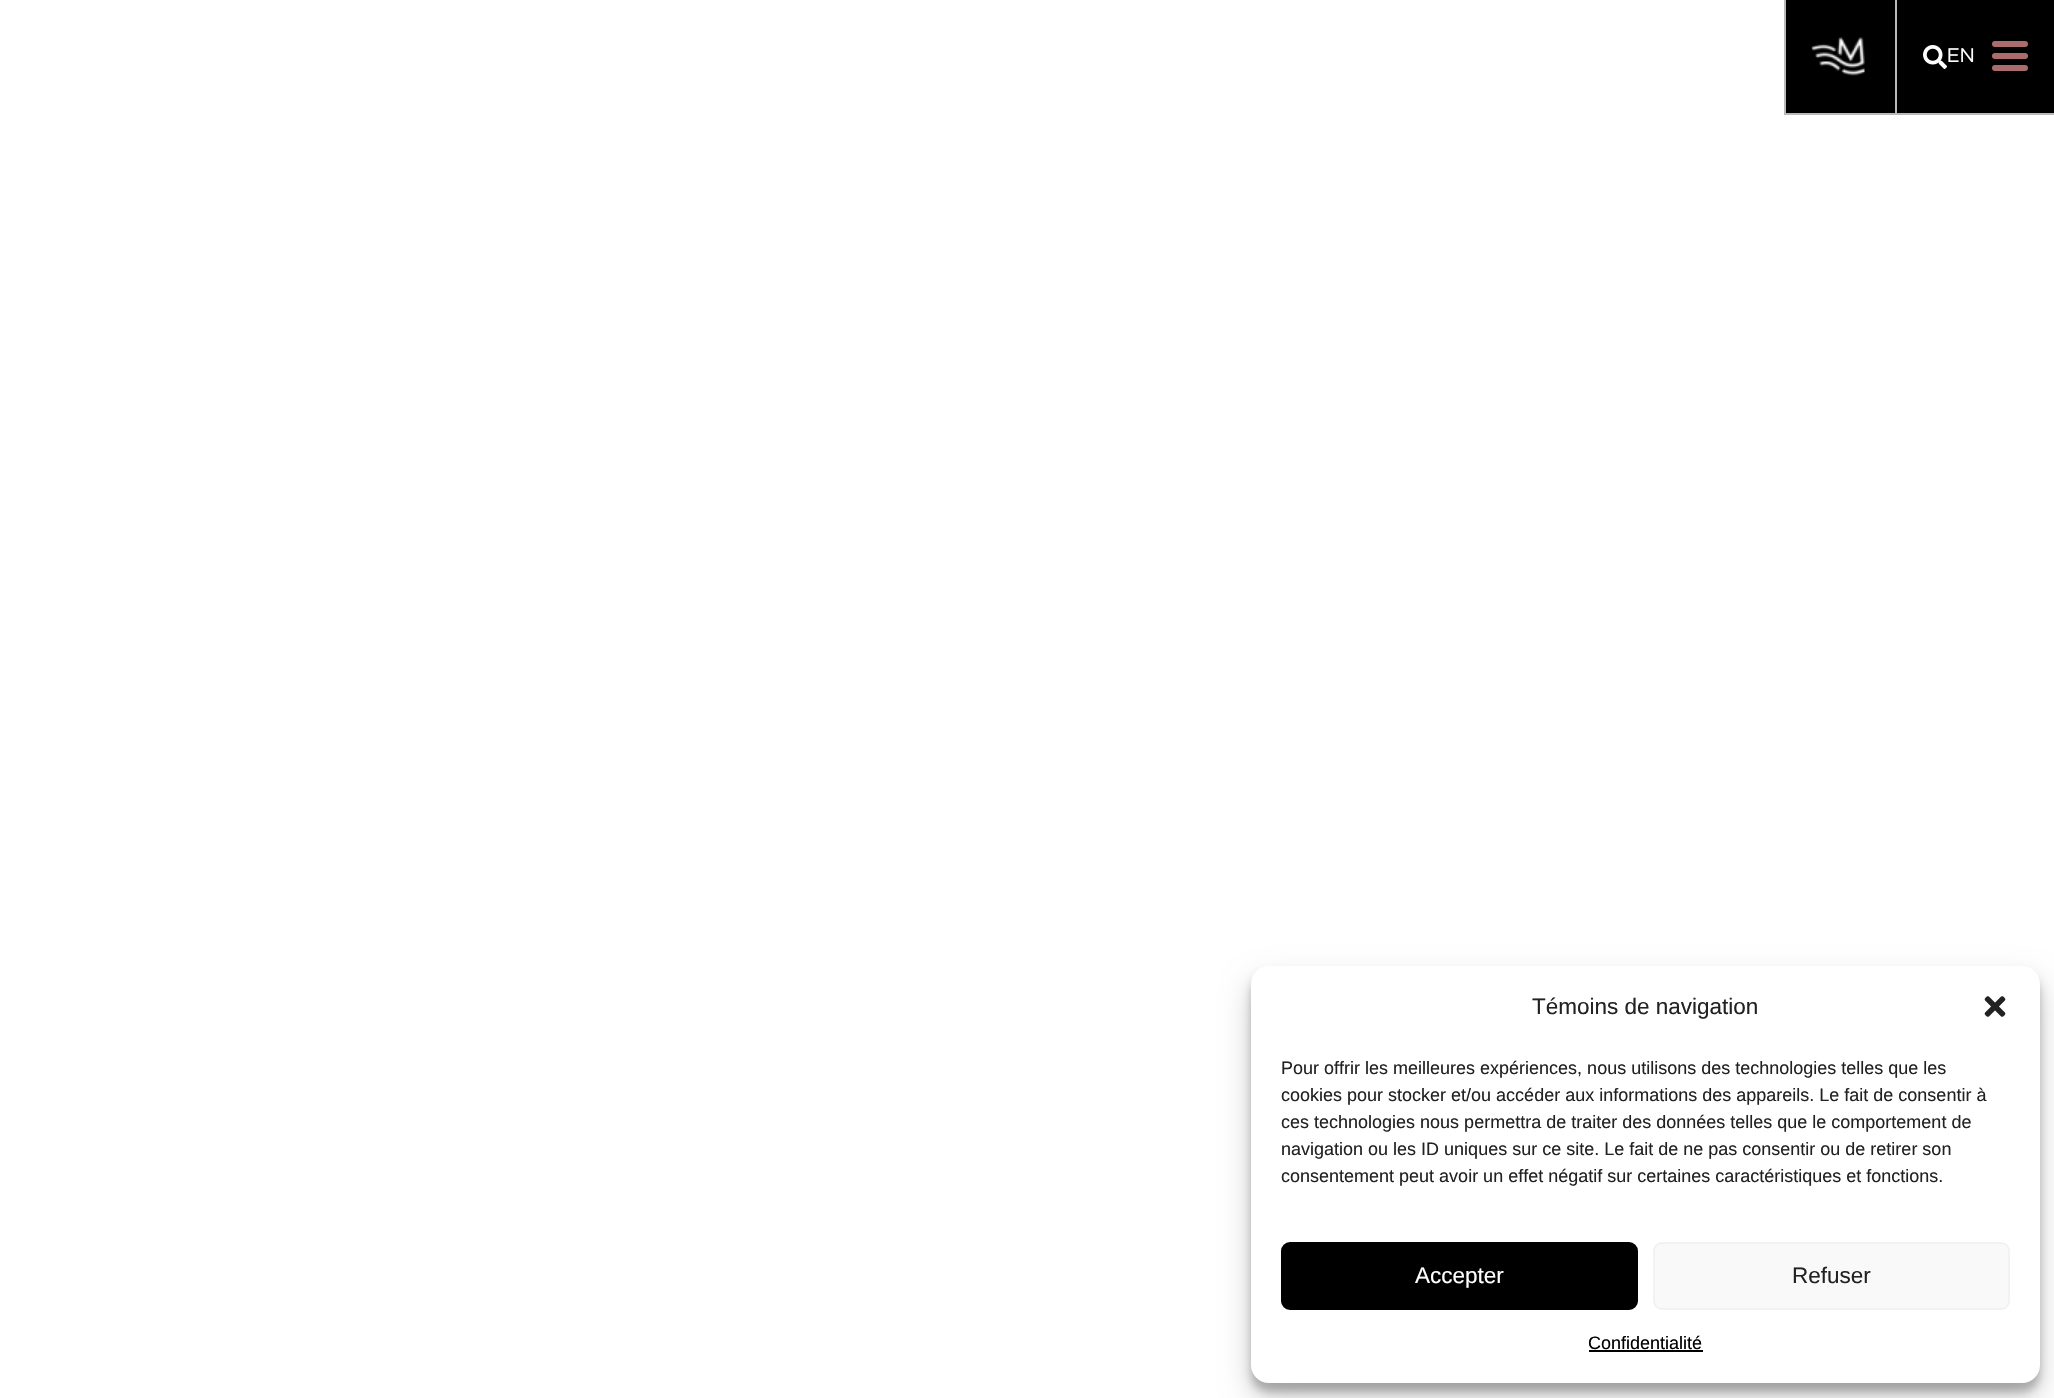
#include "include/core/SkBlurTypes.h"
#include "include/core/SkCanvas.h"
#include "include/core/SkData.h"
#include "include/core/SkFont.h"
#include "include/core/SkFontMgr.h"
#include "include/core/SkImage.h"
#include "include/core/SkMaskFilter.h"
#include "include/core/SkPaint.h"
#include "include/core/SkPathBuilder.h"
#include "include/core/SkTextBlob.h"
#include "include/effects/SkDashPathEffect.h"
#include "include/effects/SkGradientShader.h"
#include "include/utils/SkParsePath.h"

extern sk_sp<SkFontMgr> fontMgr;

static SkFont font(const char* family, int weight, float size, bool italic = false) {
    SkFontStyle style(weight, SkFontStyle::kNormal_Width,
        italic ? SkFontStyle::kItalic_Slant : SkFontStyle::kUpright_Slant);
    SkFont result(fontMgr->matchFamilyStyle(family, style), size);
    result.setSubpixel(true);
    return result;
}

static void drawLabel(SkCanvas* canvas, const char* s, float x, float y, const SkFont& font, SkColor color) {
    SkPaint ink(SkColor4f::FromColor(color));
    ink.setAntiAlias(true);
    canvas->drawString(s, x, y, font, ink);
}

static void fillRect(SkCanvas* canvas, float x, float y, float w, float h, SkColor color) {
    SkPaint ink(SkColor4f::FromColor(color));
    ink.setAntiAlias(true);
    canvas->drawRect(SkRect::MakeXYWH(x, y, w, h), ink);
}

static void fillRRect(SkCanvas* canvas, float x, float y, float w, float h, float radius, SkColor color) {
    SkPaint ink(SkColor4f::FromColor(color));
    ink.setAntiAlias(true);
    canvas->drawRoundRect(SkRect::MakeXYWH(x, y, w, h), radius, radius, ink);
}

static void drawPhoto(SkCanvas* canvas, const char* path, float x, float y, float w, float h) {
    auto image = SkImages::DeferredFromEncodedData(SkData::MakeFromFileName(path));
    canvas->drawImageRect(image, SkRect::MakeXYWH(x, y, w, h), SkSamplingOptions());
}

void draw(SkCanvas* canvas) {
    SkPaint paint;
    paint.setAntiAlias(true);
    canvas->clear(0xFFFFFFFF);
    fillRect(canvas, 1786, 0, 268, 113, 0xFF000000);
    fillRect(canvas, 1784, 113, 270, 2, 0xFFB9B9B9);
    fillRect(canvas, 1784, 0, 2, 114, 0xFFB9B9B9);
    fillRect(canvas, 1895, 0, 2, 113, 0xFFB9B9B9);
    drawPhoto(canvas, "assets/img1.png", 1811, 37, 54, 39);
    drawPhoto(canvas, "assets/img2.png", 1923, 45, 24, 24);
    SkFont font1 = font("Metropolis", 400, 20);
    drawLabel(canvas, "EN", 1947, 62, font1, 0xFFFFFFFF);
    fillRRect(canvas, 1992, 41, 36, 6, 3, 0xFFAA6C6C);
    fillRRect(canvas, 1992, 53, 36, 6, 3, 0xFFAA6C6C);
    fillRRect(canvas, 1992, 65, 36, 6, 3, 0xFFAA6C6C);
    paint.setColor(0x3B000000);
    paint.setMaskFilter(SkMaskFilter::MakeBlur(kNormal_SkBlurStyle, 4.5f));
    canvas->drawRoundRect(SkRect::MakeXYWH(1251, 975, 789, 417), 18, 18, paint);
    paint.setMaskFilter(nullptr);
    paint.setColor(0x30000000);
    paint.setMaskFilter(SkMaskFilter::MakeBlur(kNormal_SkBlurStyle, 15));
    canvas->drawRoundRect(SkRect::MakeXYWH(1251, 981, 789, 417), 18, 18, paint);
    paint.setMaskFilter(nullptr);
    fillRRect(canvas, 1251, 966, 789, 417, 18, 0xFFFFFFFF);
    SkFont font2 = font("Liberation Sans", 400, 22.5f);
    drawLabel(canvas, "Témoins de navigation", 1532, 1014, font2, 0xFF222222);
    drawPhoto(canvas, "assets/img3.png", 1984, 996, 22, 21);
    SkFont font3 = font("Liberation Sans", 400, 18);
    drawLabel(canvas, "Pour offrir les meilleures expériences, nous utilisons des technologies telles que les", 1281, 1074, font3, 0xFF222222);
    drawLabel(canvas, "cookies pour stocker et/ou accéder aux informations des appareils. Le fait de consentir à", 1281, 1101, font3, 0xFF222222);
    drawLabel(canvas, "ces technologies nous permettra de traiter des données telles que le comportement de", 1281, 1128, font3, 0xFF222222);
    drawLabel(canvas, "navigation ou les ID uniques sur ce site. Le fait de ne pas consentir ou de retirer son", 1281, 1155, font3, 0xFF222222);
    drawLabel(canvas, "consentement peut avoir un effet négatif sur certaines caractéristiques et fonctions.", 1281, 1182, font3, 0xFF222222);
    paint.setColor(0xFF000000);
    canvas->drawRoundRect(SkRect::MakeXYWH(1282, 1243, 355, 66), 8, 8, paint);
    paint.setStroke(true);
    paint.setStrokeWidth(2);
    canvas->drawRoundRect(SkRect::MakeXYWH(1282, 1243, 355, 66), 8, 8, paint);
    drawLabel(canvas, "Accepter", 1415, 1283, font2, 0xFFFFFFFF);
    paint.setStroke(false);
    paint.setColor(0xFFF9F9F9);
    canvas->drawRoundRect(SkRect::MakeXYWH(1654, 1243, 355, 66), 8, 8, paint);
    paint.setStroke(true);
    paint.setColor(0xFFF2F2F2);
    canvas->drawRoundRect(SkRect::MakeXYWH(1654, 1243, 355, 66), 8, 8, paint);
    drawLabel(canvas, "Refuser", 1792, 1283, font2, 0xFF222222);
    drawLabel(canvas, "Confidentialité", 1588, 1349, font3, 0xFF000000);
    fillRect(canvas, 1589, 1350, 114, 2, 0xFF000000);
}
